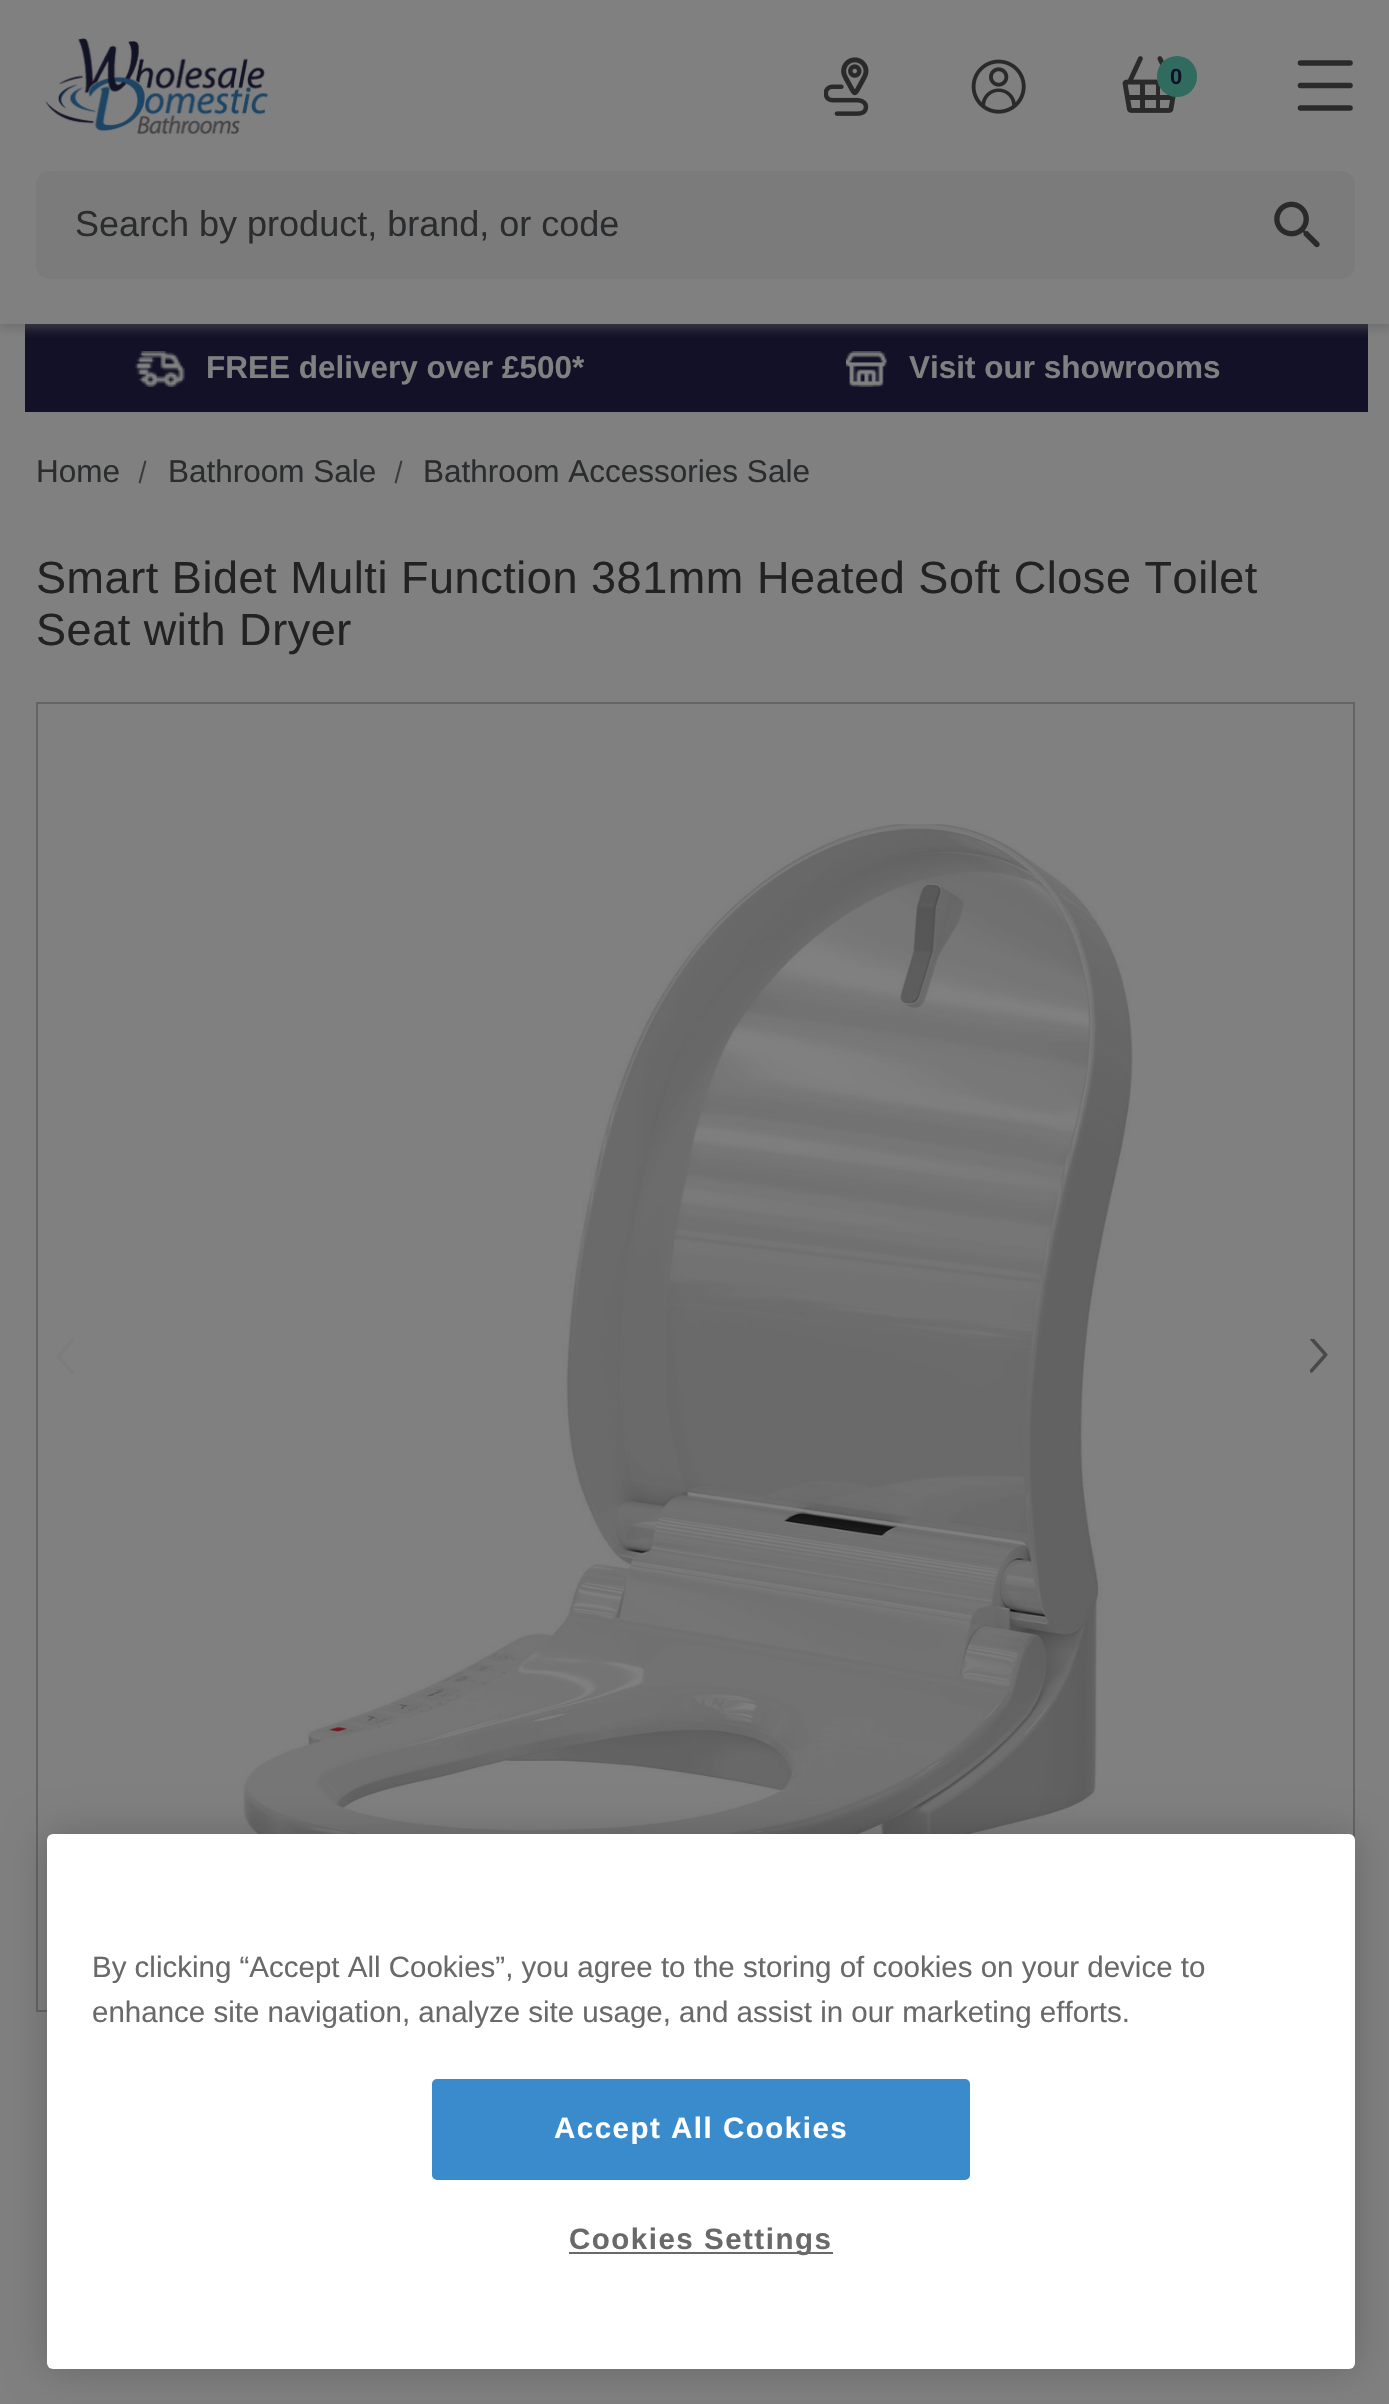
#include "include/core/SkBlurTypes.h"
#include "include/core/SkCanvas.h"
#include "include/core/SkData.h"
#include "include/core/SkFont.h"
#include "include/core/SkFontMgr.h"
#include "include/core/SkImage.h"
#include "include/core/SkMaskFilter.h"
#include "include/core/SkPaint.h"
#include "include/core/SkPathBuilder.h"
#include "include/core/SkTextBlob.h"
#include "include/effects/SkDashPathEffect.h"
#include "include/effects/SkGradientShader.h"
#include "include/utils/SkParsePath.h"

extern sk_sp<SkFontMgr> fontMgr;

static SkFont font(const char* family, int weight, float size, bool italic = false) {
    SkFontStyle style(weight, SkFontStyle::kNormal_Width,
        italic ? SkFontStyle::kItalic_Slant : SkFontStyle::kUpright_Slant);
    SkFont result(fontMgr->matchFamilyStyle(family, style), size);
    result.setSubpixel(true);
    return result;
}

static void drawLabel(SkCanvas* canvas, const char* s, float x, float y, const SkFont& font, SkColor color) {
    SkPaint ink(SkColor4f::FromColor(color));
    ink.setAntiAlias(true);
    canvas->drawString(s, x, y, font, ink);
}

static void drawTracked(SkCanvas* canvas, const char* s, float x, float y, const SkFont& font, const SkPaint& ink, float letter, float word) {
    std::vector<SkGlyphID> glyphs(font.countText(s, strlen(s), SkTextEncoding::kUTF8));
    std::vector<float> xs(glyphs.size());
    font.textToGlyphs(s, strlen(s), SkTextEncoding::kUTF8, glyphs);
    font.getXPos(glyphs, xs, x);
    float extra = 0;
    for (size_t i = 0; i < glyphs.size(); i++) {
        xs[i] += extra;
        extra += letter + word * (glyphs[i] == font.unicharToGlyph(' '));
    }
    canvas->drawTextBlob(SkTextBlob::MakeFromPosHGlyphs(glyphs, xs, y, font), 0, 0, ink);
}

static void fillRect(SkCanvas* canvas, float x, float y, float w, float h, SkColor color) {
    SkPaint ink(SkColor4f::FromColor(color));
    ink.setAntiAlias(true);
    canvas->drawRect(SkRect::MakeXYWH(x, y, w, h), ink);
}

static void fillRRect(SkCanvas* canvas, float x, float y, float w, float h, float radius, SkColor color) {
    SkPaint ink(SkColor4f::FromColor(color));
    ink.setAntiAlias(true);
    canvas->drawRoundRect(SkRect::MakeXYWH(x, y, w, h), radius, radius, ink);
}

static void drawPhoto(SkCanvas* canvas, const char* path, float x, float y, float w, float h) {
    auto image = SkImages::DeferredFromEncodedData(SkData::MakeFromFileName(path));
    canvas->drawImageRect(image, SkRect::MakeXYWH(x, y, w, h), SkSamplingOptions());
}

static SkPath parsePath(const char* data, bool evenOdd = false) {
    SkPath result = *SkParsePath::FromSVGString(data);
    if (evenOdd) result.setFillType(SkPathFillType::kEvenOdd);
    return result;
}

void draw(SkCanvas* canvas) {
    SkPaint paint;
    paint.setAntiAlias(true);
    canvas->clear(0xFF808080);
    fillRect(canvas, 25, 324, 1343, 88, 0xFF121127);
    canvas->save();
    canvas->clipRect(SkRect::MakeXYWH(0, 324, 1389, 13));
    paint.setColor(0x805D5D5D);
    paint.setMaskFilter(SkMaskFilter::MakeBlur(kNormal_SkBlurStyle, 4.5f));
    canvas->drawRect(SkRect::MakeXYWH(0, 5, 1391, 324), paint);
    paint.setMaskFilter(nullptr);
    canvas->restore();
    drawPhoto(canvas, "assets/img1.png", 45, 38, 223, 97);
    drawPhoto(canvas, "assets/img2.png", 824, 57, 45, 59);
    drawPhoto(canvas, "assets/img3.png", 971, 59, 55, 55);
    drawPhoto(canvas, "assets/img4.png", 1122, 56, 54, 57);
    fillRRect(canvas, 1157, 56, 40, 41, 20, 0xFF306B5F);
    SkFont font1 = font("Liberation Sans", 700, 22);
    drawLabel(canvas, "0", 1170, 84, font1, 0xFF121127);
    paint.setStroke(true);
    paint.setStrokeWidth(5.6f);
    paint.setStrokeCap(SkPaint::kRound_Cap);
    paint.setColor(0xFF2A2A2A);
    canvas->drawPath(parsePath("M1300.5 63H1350M1300.5 85.5H1350M1300.5 108H1350"), paint);
    fillRRect(canvas, 36, 171, 1319, 108, 14, 0xFF7B7B7B);
    SkFont font2 = font("Liberation Sans", 400, 36);
    drawLabel(canvas, "Search by product, brand, or code", 75, 236, font2, 0xFF2A2C2D);
    drawPhoto(canvas, "assets/img5.png", 1274, 201, 46, 47);
    drawPhoto(canvas, "assets/img6.png", 135, 351, 50, 36);
    SkFont font3 = font("Liberation Sans", 700, 31.5f);
    drawLabel(canvas, "FREE delivery over £500*", 206, 378, font3, 0xFF808080);
    drawPhoto(canvas, "assets/img7.png", 846, 351, 41, 36);
    drawLabel(canvas, "Visit our showrooms", 909, 378, font3, 0xFF808080);
    SkFont font4 = font("Liberation Sans", 400, 31.5f);
    drawLabel(canvas, "Home", 36, 482, font4, 0xFF2A2C2D);
    paint.setStroke(false);
    paint.setColor(0xFF3B3B3B);
    canvas->drawPath(parsePath("M144.5 460.5L146.5 461L140.5 483.5L138.5 483Z"), paint);
    drawLabel(canvas, "Bathroom Sale", 168, 482, font4, 0xFF2A2C2D);
    canvas->drawPath(parsePath("M400.5 460.5L402.5 461L396.5 483.5L394.5 483Z"), paint);
    drawLabel(canvas, "Bathroom Accessories Sale", 423, 482, font4, 0xFF2A2C2D);
    SkFont font5 = font("Liberation Sans", 400, 45);
    paint.setColor(0xFF222222);
    drawTracked(canvas, "Smart Bidet Multi Function 381mm Heated Soft Close Toilet", 36, 593, font5, paint, 0.55f, 0);
    drawTracked(canvas, "Seat with Dryer", 36, 645, font5, paint, 0.55f, 0);
    paint.setStroke(true);
    paint.setStrokeWidth(2);
    paint.setStrokeCap(SkPaint::kButt_Cap);
    paint.setColor(0xFF646464);
    canvas->drawRect(SkRect::MakeXYWH(37, 703, 1317, 1308), paint);
    drawPhoto(canvas, "assets/img8.png", 56, 1339, 18, 35);
    drawPhoto(canvas, "assets/img9.png", 243, 824, 890, 1010);
    drawPhoto(canvas, "assets/img10.png", 1310, 1339, 18, 34);
    paint.setStroke(false);
    paint.setColor(0x33000000);
    paint.setMaskFilter(SkMaskFilter::MakeBlur(kNormal_SkBlurStyle, 20));
    canvas->drawRoundRect(SkRect::MakeXYWH(47, 1834, 1308, 535), 6, 6, paint);
    paint.setMaskFilter(nullptr);
    fillRRect(canvas, 47, 1834, 1308, 535, 6, 0xFFFFFFFF);
    SkFont font6 = font("Liberation Sans", 400, 29.5f);
    drawLabel(canvas, "By clicking “Accept All Cookies”, you agree to the storing of cookies on your device to", 92, 1977, font6, 0xFF696969);
    drawLabel(canvas, "enhance site navigation, analyze site usage, and assist in our marketing efforts.", 92, 2022, font6, 0xFF696969);
    paint.setColor(0xFF398BCB);
    canvas->drawRoundRect(SkRect::MakeXYWH(433, 2080, 536, 99), 4, 4, paint);
    paint.setStroke(true);
    canvas->drawRoundRect(SkRect::MakeXYWH(433, 2080, 536, 99), 4, 4, paint);
    SkFont font7 = font("Liberation Sans", 700, 29.5f);
    paint.setStroke(false);
    paint.setColor(0xFFFFFFFF);
    drawTracked(canvas, "Accept All Cookies", 554, 2138, font7, paint, 1.5f, 0);
    fillRect(canvas, 569, 2252, 264, 2, 0xFF696969);
    paint.setColor(0xFF696969);
    drawTracked(canvas, "Cookies Settings", 569, 2249, font7, paint, 1.5f, 0);
}
